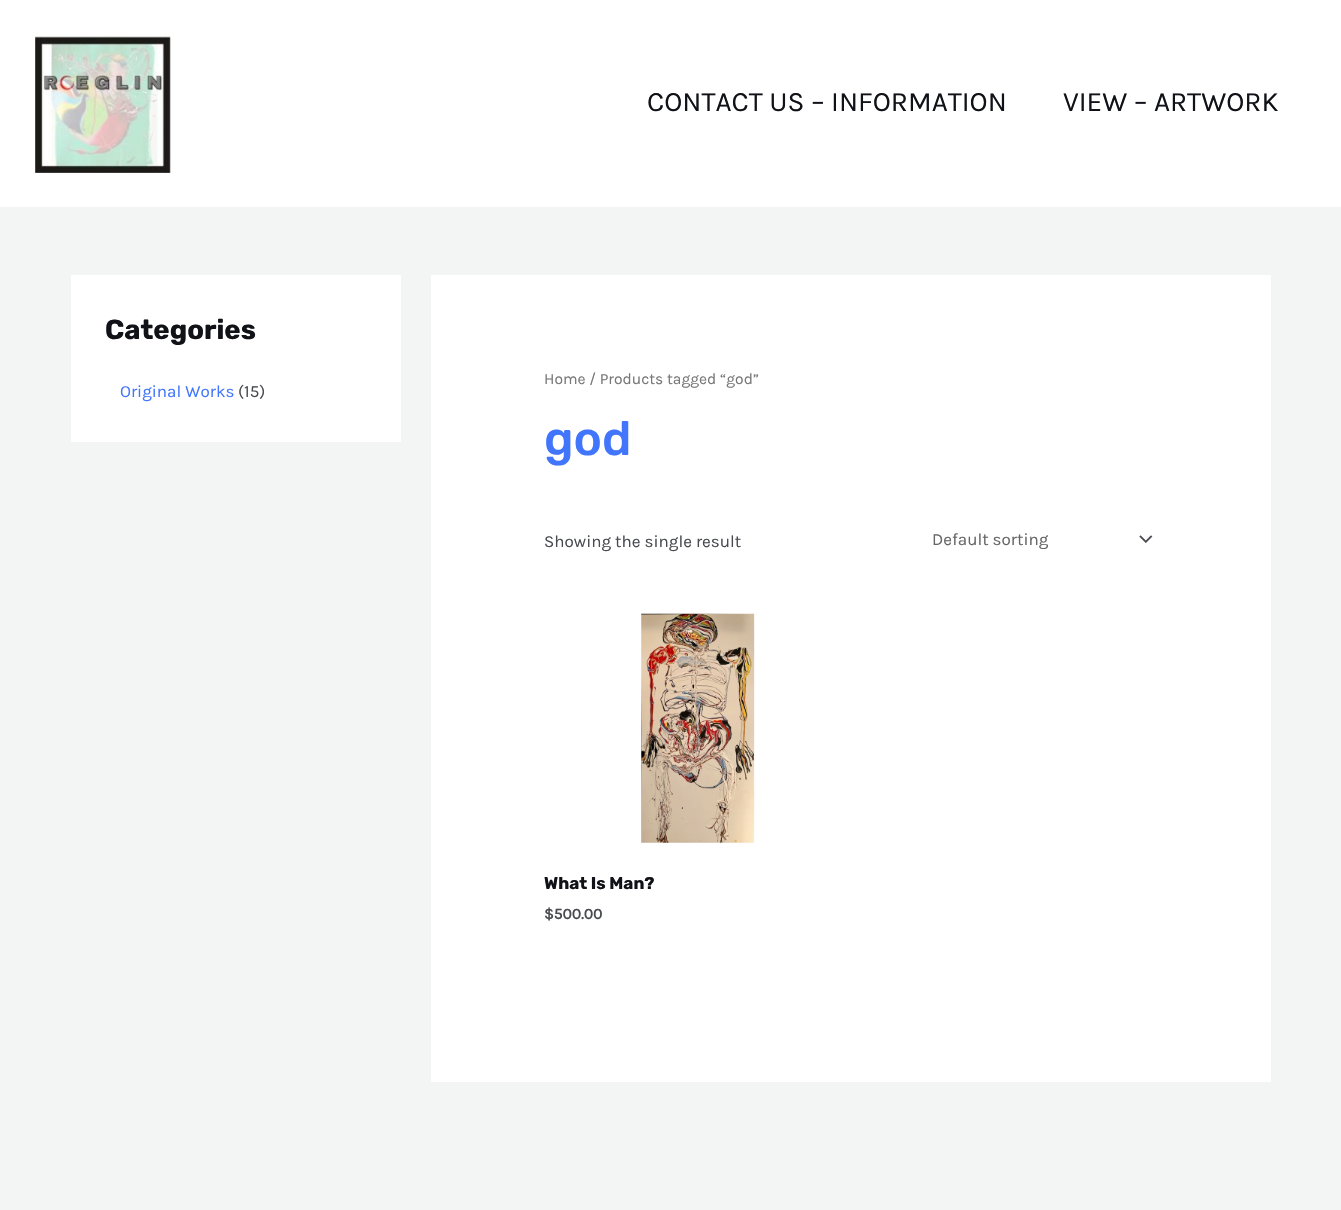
#include "include/core/SkBlurTypes.h"
#include "include/core/SkCanvas.h"
#include "include/core/SkData.h"
#include "include/core/SkFont.h"
#include "include/core/SkFontMgr.h"
#include "include/core/SkImage.h"
#include "include/core/SkMaskFilter.h"
#include "include/core/SkPaint.h"
#include "include/core/SkPathBuilder.h"
#include "include/core/SkTextBlob.h"
#include "include/effects/SkDashPathEffect.h"
#include "include/effects/SkGradientShader.h"
#include "include/utils/SkParsePath.h"

extern sk_sp<SkFontMgr> fontMgr;

static SkFont font(const char* family, int weight, float size, bool italic = false) {
    SkFontStyle style(weight, SkFontStyle::kNormal_Width,
        italic ? SkFontStyle::kItalic_Slant : SkFontStyle::kUpright_Slant);
    SkFont result(fontMgr->matchFamilyStyle(family, style), size);
    result.setSubpixel(true);
    return result;
}

static void drawLabel(SkCanvas* canvas, const char* s, float x, float y, const SkFont& font, SkColor color) {
    SkPaint ink(SkColor4f::FromColor(color));
    ink.setAntiAlias(true);
    canvas->drawString(s, x, y, font, ink);
}

static void fillRect(SkCanvas* canvas, float x, float y, float w, float h, SkColor color) {
    SkPaint ink(SkColor4f::FromColor(color));
    ink.setAntiAlias(true);
    canvas->drawRect(SkRect::MakeXYWH(x, y, w, h), ink);
}

static void drawPhoto(SkCanvas* canvas, const char* path, float x, float y, float w, float h) {
    auto image = SkImages::DeferredFromEncodedData(SkData::MakeFromFileName(path));
    canvas->drawImageRect(image, SkRect::MakeXYWH(x, y, w, h), SkSamplingOptions());
}

void draw(SkCanvas* canvas) {
    SkPaint paint;
    paint.setAntiAlias(true);
    canvas->clear(0xFFF3F5F5);
    fillRect(canvas, 0, 0, 1341, 207, 0xFFFFFFFF);
    drawPhoto(canvas, "assets/img1.png", 35, 34, 136, 139);
    SkFont font1 = font("Karla", 400, 28);
    drawLabel(canvas, "CONTACT US – INFORMATION", 647, 111, font1, 0xFF101218);
    drawLabel(canvas, "VIEW – ARTWORK", 1063, 111, font1, 0xFF101218);
    fillRect(canvas, 71, 275, 330, 167, 0xFFFFFFFF);
    SkFont font2 = font("Rubik", 700, 27.5f);
    drawLabel(canvas, "Categories", 105, 339, font2, 0xFF101218);
    SkFont font3 = font("Karla", 400, 17);
    drawLabel(canvas, "Original Works", 120, 397, font3, 0xFF4175FC);
    drawLabel(canvas, "(15)", 238, 397, font3, 0xFF494B51);
    fillRect(canvas, 431, 275, 840, 807, 0xFFFFFFFF);
    SkFont font4 = font("Karla", 400, 15.6f);
    drawLabel(canvas, "Home / Products tagged “god”", 544, 384, font4, 0xFF777777);
    SkFont font5 = font("Rubik", 500, 48);
    drawLabel(canvas, "god", 544, 455, font5, 0xFF4175FC);
    drawLabel(canvas, "Showing the single result", 544, 547, font3, 0xFF494B51);
    drawPhoto(canvas, "assets/img2.png", 1139, 535, 14, 8);
    canvas->save();
    canvas->clipRect(SkRect::MakeXYWH(932, 529, 191, 20));
    drawLabel(canvas, "Default sorting", 932, 545, font3, 0xFF666666);
    canvas->restore();
    drawPhoto(canvas, "assets/img3.png", 641, 613, 114, 230);
    SkFont font6 = font("Rubik", 700, 17);
    drawLabel(canvas, "What Is Man?", 544, 889, font6, 0xFF101218);
    SkFont font7 = font("Karla", 700, 15.5f);
    drawLabel(canvas, "$500.00", 544, 919, font7, 0xFF494B51);
}
